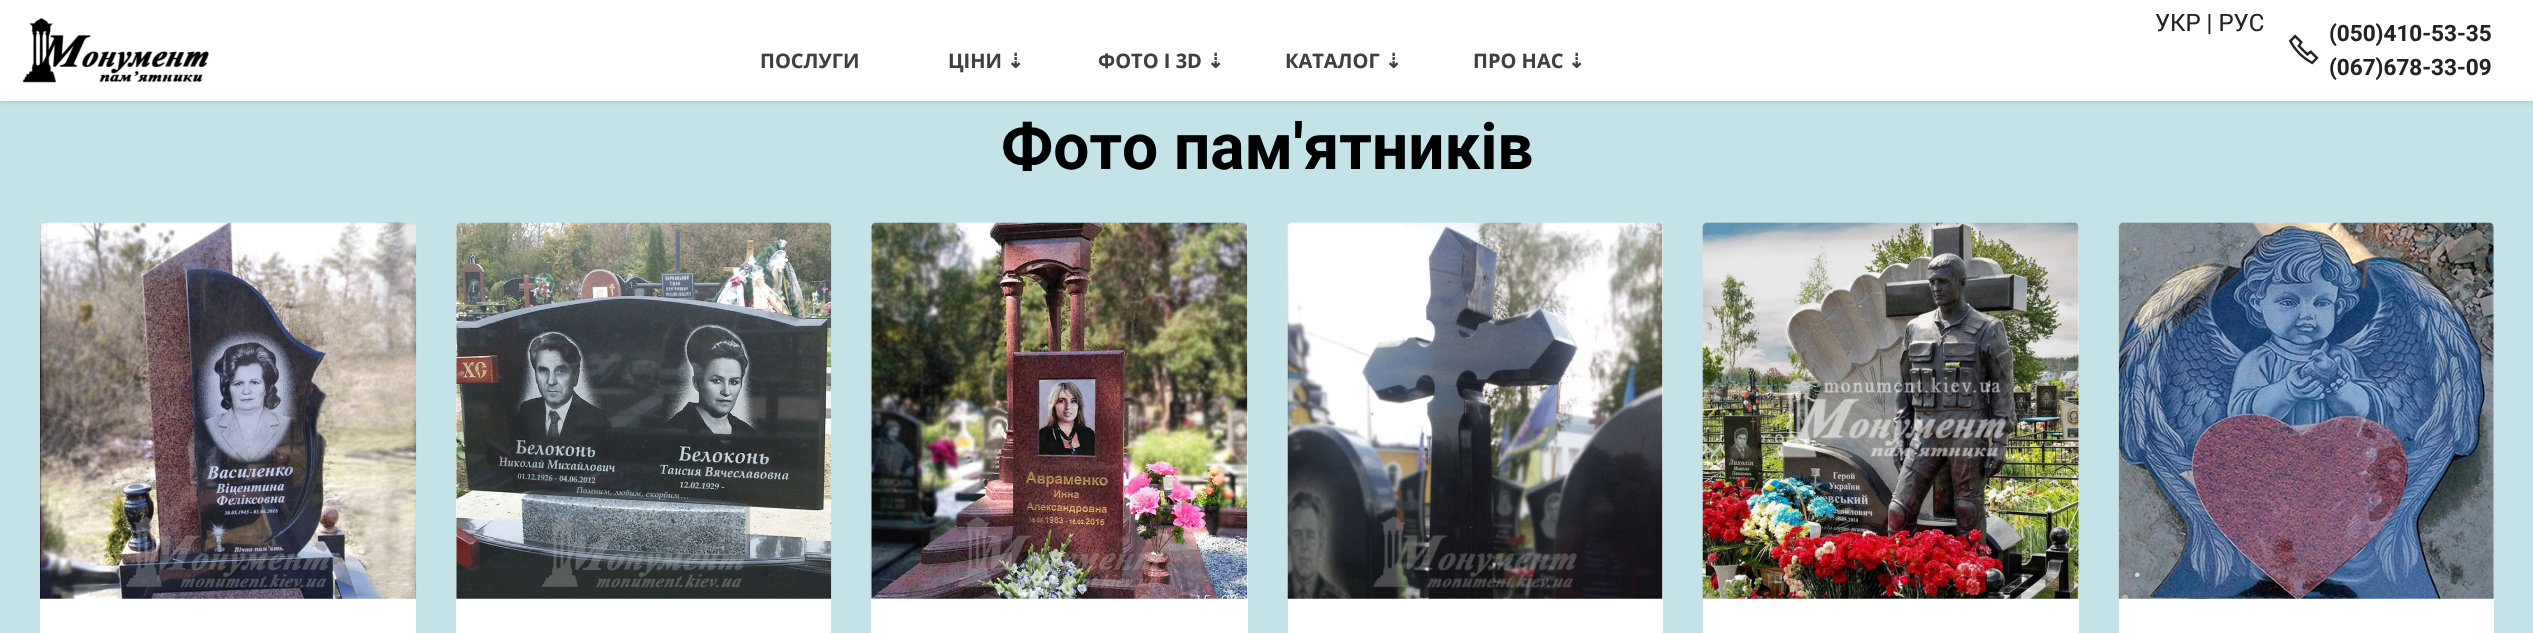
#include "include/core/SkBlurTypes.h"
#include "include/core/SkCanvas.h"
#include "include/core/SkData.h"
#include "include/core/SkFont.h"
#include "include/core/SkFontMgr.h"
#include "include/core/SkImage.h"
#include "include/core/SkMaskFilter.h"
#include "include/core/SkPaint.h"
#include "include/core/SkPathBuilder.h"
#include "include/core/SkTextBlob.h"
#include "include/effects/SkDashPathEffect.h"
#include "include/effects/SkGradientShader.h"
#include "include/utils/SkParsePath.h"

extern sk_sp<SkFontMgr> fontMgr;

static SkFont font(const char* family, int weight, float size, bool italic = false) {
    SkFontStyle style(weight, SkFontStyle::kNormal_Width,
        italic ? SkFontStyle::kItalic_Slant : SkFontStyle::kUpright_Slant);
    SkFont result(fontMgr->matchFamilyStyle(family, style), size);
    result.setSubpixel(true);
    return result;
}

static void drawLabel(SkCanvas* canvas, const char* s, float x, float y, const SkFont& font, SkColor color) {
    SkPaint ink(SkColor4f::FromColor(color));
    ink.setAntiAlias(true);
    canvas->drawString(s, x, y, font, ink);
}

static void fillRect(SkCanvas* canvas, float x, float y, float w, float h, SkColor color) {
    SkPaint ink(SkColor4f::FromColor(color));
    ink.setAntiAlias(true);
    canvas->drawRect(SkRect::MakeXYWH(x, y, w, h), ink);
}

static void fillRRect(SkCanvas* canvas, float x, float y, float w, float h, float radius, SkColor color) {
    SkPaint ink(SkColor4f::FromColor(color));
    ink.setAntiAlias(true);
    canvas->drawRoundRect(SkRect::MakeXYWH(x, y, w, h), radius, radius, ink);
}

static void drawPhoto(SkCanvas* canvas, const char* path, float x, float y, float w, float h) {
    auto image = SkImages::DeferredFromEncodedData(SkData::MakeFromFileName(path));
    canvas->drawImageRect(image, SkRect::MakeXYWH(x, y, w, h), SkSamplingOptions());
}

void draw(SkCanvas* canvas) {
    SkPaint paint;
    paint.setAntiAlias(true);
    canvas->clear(0xFFC4E3E8);
    paint.setColor(0x1A000000);
    paint.setMaskFilter(SkMaskFilter::MakeBlur(kNormal_SkBlurStyle, 2));
    canvas->drawRect(SkRect::MakeXYWH(0, 1, 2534, 102), paint);
    paint.setMaskFilter(nullptr);
    fillRect(canvas, 0, 0, 2533, 101, 0xFFFFFFFF);
    drawPhoto(canvas, "assets/img1.png", 22, 18, 187, 65);
    SkFont font1 = font("Open Sans", 700, 20);
    drawLabel(canvas, "ПОСЛУГИ", 760, 68, font1, 0xFF404040);
    drawLabel(canvas, "ЦІНИ", 948, 68, font1, 0xFF404040);
    SkFont font2 = font("DejaVu Sans", 700, 20);
    drawLabel(canvas, "⇣", 1007, 68, font2, 0xFF404040);
    drawLabel(canvas, "ФОТО І 3D", 1098, 68, font1, 0xFF404040);
    drawLabel(canvas, "⇣", 1207, 68, font2, 0xFF404040);
    drawLabel(canvas, "КАТАЛОГ", 1285, 68, font1, 0xFF404040);
    drawLabel(canvas, "⇣", 1385, 68, font2, 0xFF404040);
    drawLabel(canvas, "ПРО НАС", 1473, 68, font1, 0xFF404040);
    drawLabel(canvas, "⇣", 1568, 68, font2, 0xFF404040);
    SkFont font3 = font("Roboto", 400, 24);
    drawLabel(canvas, "УКР | РУС", 2155, 31, font3, 0xFF232323);
    drawPhoto(canvas, "assets/img2.png", 2288, 34, 31, 31);
    SkFont font4 = font("Roboto", 700, 22.5f);
    drawLabel(canvas, "(050)410-53-35", 2329, 41, font4, 0xFF232323);
    drawLabel(canvas, "(067)678-33-09", 2329, 75, font4, 0xFF232323);
    SkFont font5 = font("Roboto", 700, 64);
    drawLabel(canvas, "Фото пам'ятників", 1001, 169, font5, 0xFF000000);
    fillRRect(canvas, 40, 223, 376, 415, 5, 0xFFFFFFFF);
    drawPhoto(canvas, "assets/img3.png", 40, 222, 377, 377);
    fillRRect(canvas, 456, 223, 375, 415, 5, 0xFFFFFFFF);
    drawPhoto(canvas, "assets/img4.png", 456, 222, 376, 377);
    fillRRect(canvas, 871, 223, 377, 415, 5, 0xFFFFFFFF);
    drawPhoto(canvas, "assets/img5.png", 871, 222, 377, 377);
    fillRRect(canvas, 1288, 223, 375, 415, 5, 0xFFFFFFFF);
    drawPhoto(canvas, "assets/img6.png", 1287, 222, 376, 377);
    fillRRect(canvas, 1703, 223, 376, 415, 5, 0xFFFFFFFF);
    drawPhoto(canvas, "assets/img7.png", 1702, 222, 377, 377);
    fillRRect(canvas, 2119, 223, 375, 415, 5, 0xFFFFFFFF);
    drawPhoto(canvas, "assets/img8.png", 2118, 222, 376, 377);
}
